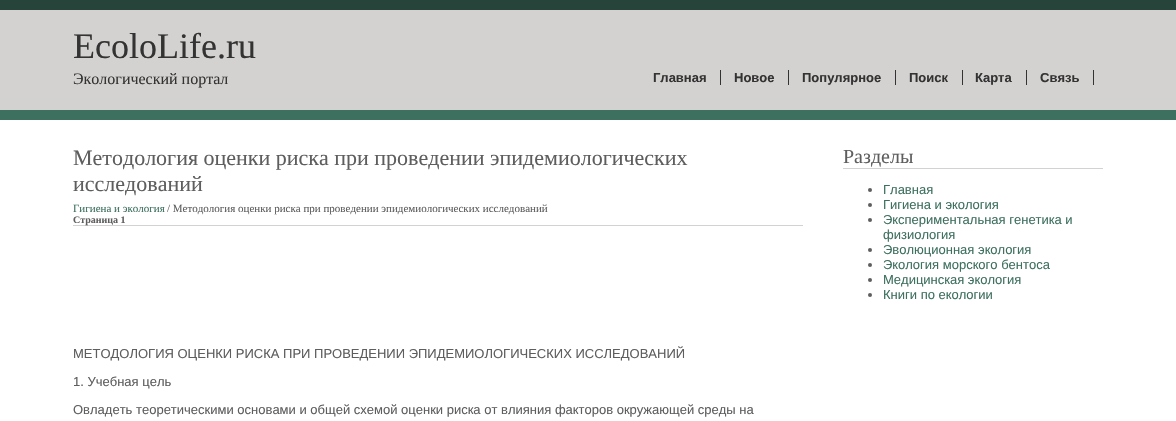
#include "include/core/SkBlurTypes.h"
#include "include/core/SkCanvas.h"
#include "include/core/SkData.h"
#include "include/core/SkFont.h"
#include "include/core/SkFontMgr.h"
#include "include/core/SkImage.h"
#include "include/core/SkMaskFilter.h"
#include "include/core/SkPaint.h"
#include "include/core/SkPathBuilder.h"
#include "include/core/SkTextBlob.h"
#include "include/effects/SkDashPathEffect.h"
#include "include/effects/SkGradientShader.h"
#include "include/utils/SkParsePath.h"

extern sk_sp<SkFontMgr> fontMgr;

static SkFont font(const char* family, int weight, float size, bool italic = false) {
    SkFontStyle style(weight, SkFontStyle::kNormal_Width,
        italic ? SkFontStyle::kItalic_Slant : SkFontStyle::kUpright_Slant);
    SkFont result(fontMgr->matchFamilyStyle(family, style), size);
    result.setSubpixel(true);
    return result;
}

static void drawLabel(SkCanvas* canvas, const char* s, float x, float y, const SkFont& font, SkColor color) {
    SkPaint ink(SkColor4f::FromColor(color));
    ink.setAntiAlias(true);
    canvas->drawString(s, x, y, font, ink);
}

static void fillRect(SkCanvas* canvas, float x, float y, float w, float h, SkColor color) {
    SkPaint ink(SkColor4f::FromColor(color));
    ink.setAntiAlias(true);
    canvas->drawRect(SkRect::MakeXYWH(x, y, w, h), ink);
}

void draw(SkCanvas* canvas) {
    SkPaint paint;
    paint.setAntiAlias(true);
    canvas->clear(0xFFD4D2D0);
    fillRect(canvas, 0, 0, 1176, 10, 0xFF26443A);
    SkFont font1 = font("Liberation Serif", 400, 36);
    drawLabel(canvas, "EcoloLife.ru", 73, 58, font1, 0xFF333333);
    SkFont font2 = font("Liberation Serif", 400, 16);
    drawLabel(canvas, "Экологический портал", 73, 84, font2, 0xFF333333);
    SkFont font3 = font("Liberation Sans", 700, 13);
    drawLabel(canvas, "Главная", 653, 82, font3, 0xFF333333);
    fillRect(canvas, 720, 70, 1, 15, 0xFF333333);
    drawLabel(canvas, "Новое", 734, 82, font3, 0xFF333333);
    fillRect(canvas, 788, 70, 1, 15, 0xFF333333);
    drawLabel(canvas, "Популярное", 802, 82, font3, 0xFF333333);
    fillRect(canvas, 895, 70, 1, 15, 0xFF333333);
    drawLabel(canvas, "Поиск", 909, 82, font3, 0xFF333333);
    fillRect(canvas, 962, 70, 1, 15, 0xFF333333);
    drawLabel(canvas, "Карта", 975, 82, font3, 0xFF333333);
    fillRect(canvas, 1026, 70, 1, 15, 0xFF333333);
    drawLabel(canvas, "Связь", 1040, 82, font3, 0xFF333333);
    fillRect(canvas, 1093, 70, 1, 15, 0xFF333333);
    fillRect(canvas, 0, 110, 1176, 10, 0xFF3E7060);
    fillRect(canvas, 0, 120, 1176, 301, 0xFFFFFFFF);
    fillRect(canvas, 73, 225, 730, 1, 0xFFD2D2D2);
    SkFont font4 = font("Liberation Serif", 400, 22);
    drawLabel(canvas, "Методология оценки риска при проведении эпидемиологических", 73, 165, font4, 0xFF5E5E5E);
    drawLabel(canvas, "исследований", 73, 191, font4, 0xFF5E5E5E);
    SkFont font5 = font("Liberation Serif", 400, 11);
    drawLabel(canvas, "Гигиена и экология", 73, 212, font5, 0xFF3E7060);
    drawLabel(canvas, "/ Методология оценки риска при проведении эпидемиологических исследований", 167, 212, font5, 0xFF5E5E5E);
    SkFont font6 = font("Liberation Serif", 700, 10);
    drawLabel(canvas, "Страница 1", 73, 223, font6, 0xFF5E5E5E);
    SkFont font7 = font("Liberation Sans", 400, 13);
    drawLabel(canvas, "МЕТОДОЛОГИЯ ОЦЕНКИ РИСКА ПРИ ПРОВЕДЕНИИ ЭПИДЕМИОЛОГИЧЕСКИХ ИССЛЕДОВАНИЙ", 73, 358, font7, 0xFF5E5E5E);
    drawLabel(canvas, "1. Учебная цель", 73, 386, font7, 0xFF5E5E5E);
    drawLabel(canvas, "Овладеть теоретическими основами и общей схемой оценки риска от влияния факторов окружающей среды на", 73, 414, font7, 0xFF5E5E5E);
    fillRect(canvas, 843, 168, 260, 1, 0xFFD2D2D2);
    SkFont font8 = font("Liberation Serif", 400, 20);
    drawLabel(canvas, "Разделы", 843, 163, font8, 0xFF5E5E5E);
    paint.setColor(0xFF5E5E5E);
    canvas->drawCircle(870, 190, 2, paint);
    drawLabel(canvas, "Главная", 883, 194, font7, 0xFF3E7060);
    canvas->drawCircle(870, 205, 2, paint);
    drawLabel(canvas, "Гигиена и экология", 883, 209, font7, 0xFF3E7060);
    canvas->drawCircle(870, 220, 2, paint);
    drawLabel(canvas, "Экспериментальная генетика и", 883, 224, font7, 0xFF3E7060);
    drawLabel(canvas, "физиология", 883, 239, font7, 0xFF3E7060);
    canvas->drawCircle(870, 250, 2, paint);
    drawLabel(canvas, "Эволюционная экология", 883, 254, font7, 0xFF3E7060);
    canvas->drawCircle(870, 265, 2, paint);
    drawLabel(canvas, "Экология морского бентоса", 883, 269, font7, 0xFF3E7060);
    canvas->drawCircle(870, 280, 2, paint);
    drawLabel(canvas, "Медицинская экология", 883, 284, font7, 0xFF3E7060);
    canvas->drawCircle(870, 295, 2, paint);
    drawLabel(canvas, "Книги по екологии", 883, 299, font7, 0xFF3E7060);
}
